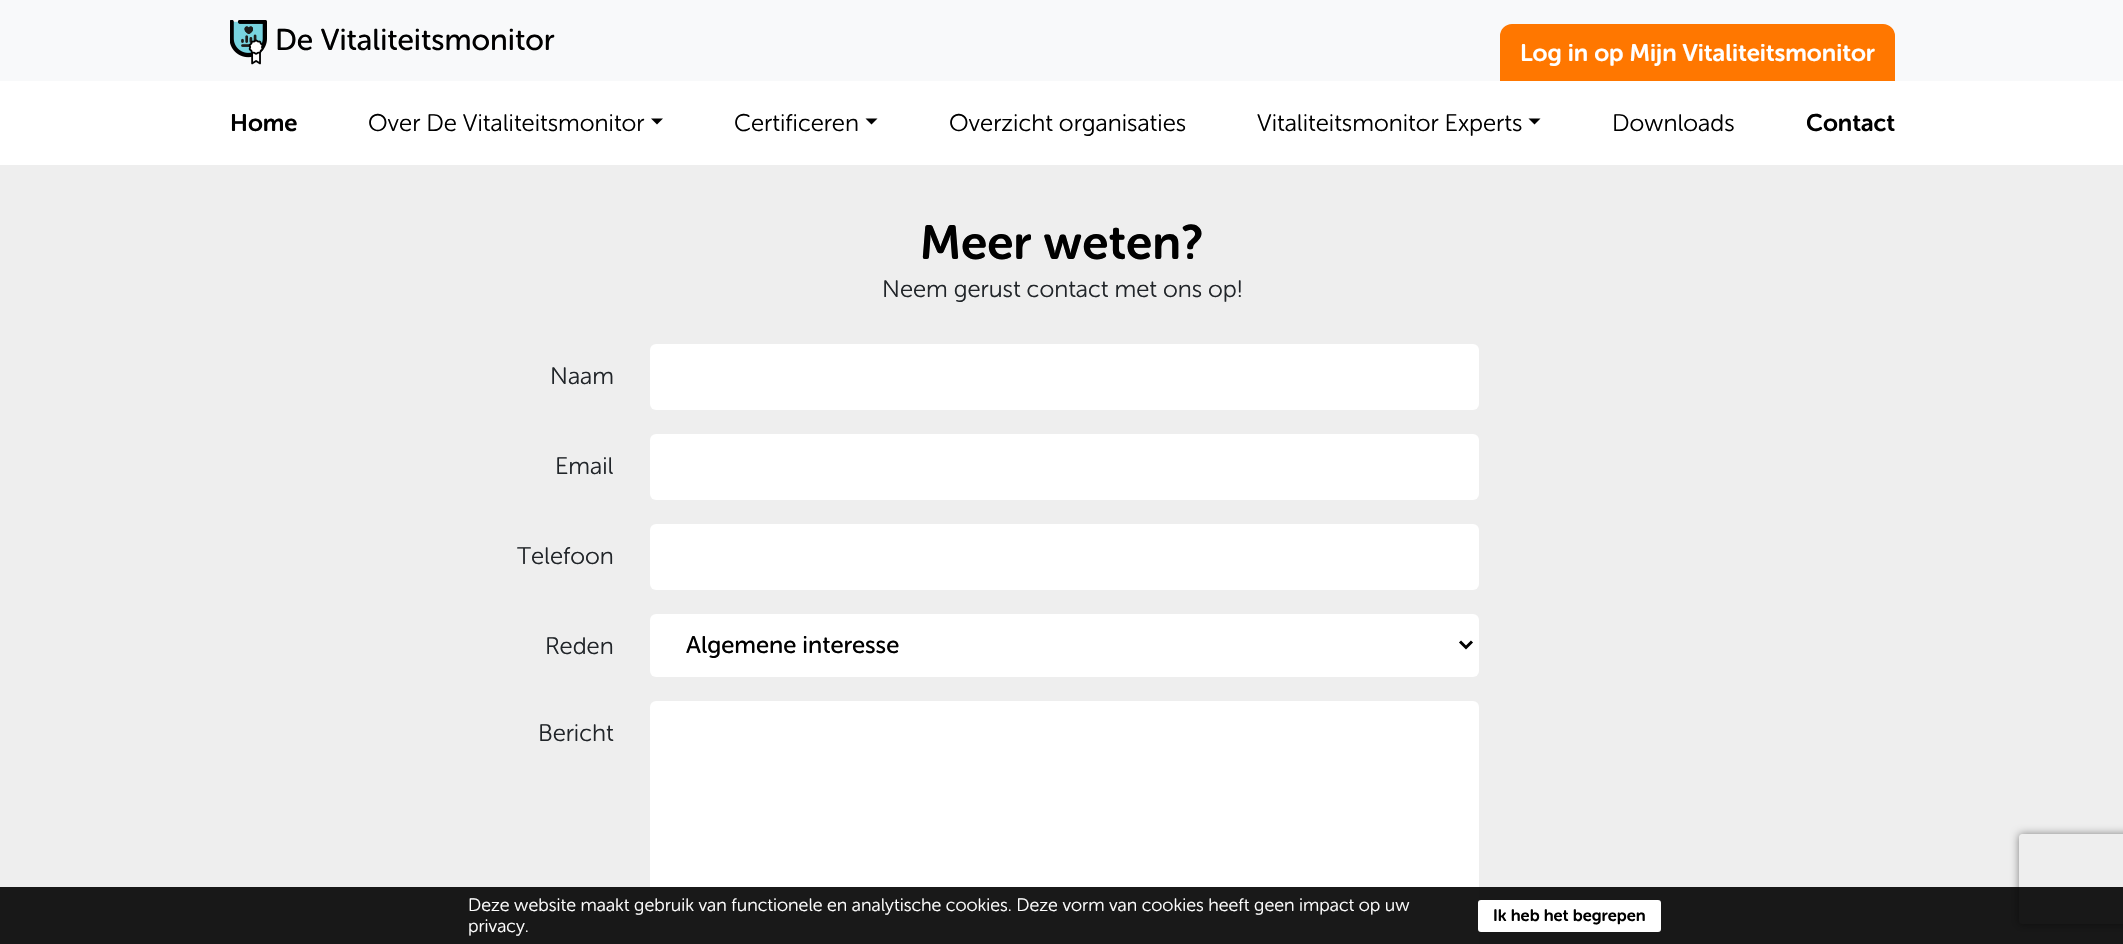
#include "include/core/SkBlurTypes.h"
#include "include/core/SkCanvas.h"
#include "include/core/SkData.h"
#include "include/core/SkFont.h"
#include "include/core/SkFontMgr.h"
#include "include/core/SkImage.h"
#include "include/core/SkMaskFilter.h"
#include "include/core/SkPaint.h"
#include "include/core/SkPathBuilder.h"
#include "include/core/SkTextBlob.h"
#include "include/effects/SkDashPathEffect.h"
#include "include/effects/SkGradientShader.h"
#include "include/utils/SkParsePath.h"

extern sk_sp<SkFontMgr> fontMgr;

static SkFont font(const char* family, int weight, float size, bool italic = false) {
    SkFontStyle style(weight, SkFontStyle::kNormal_Width,
        italic ? SkFontStyle::kItalic_Slant : SkFontStyle::kUpright_Slant);
    SkFont result(fontMgr->matchFamilyStyle(family, style), size);
    result.setSubpixel(true);
    return result;
}

static void drawLabel(SkCanvas* canvas, const char* s, float x, float y, const SkFont& font, SkColor color) {
    SkPaint ink(SkColor4f::FromColor(color));
    ink.setAntiAlias(true);
    canvas->drawString(s, x, y, font, ink);
}

static void fillRect(SkCanvas* canvas, float x, float y, float w, float h, SkColor color) {
    SkPaint ink(SkColor4f::FromColor(color));
    ink.setAntiAlias(true);
    canvas->drawRect(SkRect::MakeXYWH(x, y, w, h), ink);
}

static void fillRRect(SkCanvas* canvas, float x, float y, float w, float h, float radius, SkColor color) {
    SkPaint ink(SkColor4f::FromColor(color));
    ink.setAntiAlias(true);
    canvas->drawRoundRect(SkRect::MakeXYWH(x, y, w, h), radius, radius, ink);
}

static void drawPhoto(SkCanvas* canvas, const char* path, float x, float y, float w, float h) {
    auto image = SkImages::DeferredFromEncodedData(SkData::MakeFromFileName(path));
    canvas->drawImageRect(image, SkRect::MakeXYWH(x, y, w, h), SkSamplingOptions());
}

static SkPath parsePath(const char* data, bool evenOdd = false) {
    SkPath result = *SkParsePath::FromSVGString(data);
    if (evenOdd) result.setFillType(SkPathFillType::kEvenOdd);
    return result;
}

void draw(SkCanvas* canvas) {
    SkPaint paint;
    paint.setAntiAlias(true);
    canvas->clear(0xFFFFFFFF);
    fillRect(canvas, 0, 0, 2123, 81, 0xFFF8F9FA);
    drawPhoto(canvas, "assets/img1.png", 230, 20, 37, 45);
    SkFont font1 = font("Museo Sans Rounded", 400, 30);
    drawLabel(canvas, "De Vitaliteitsmonitor", 275, 50, font1, 0xFF000000);
    paint.setColor(0xFFFF7700);
    canvas->drawPath(parsePath("M1512 25H1883C1889 25 1894 30 1894 36V80H1501V36C1501 30 1506 25 1512 25Z"), paint);
    paint.setStroke(true);
    paint.setStrokeWidth(2);
    canvas->drawPath(parsePath("M1512 25H1883C1889 25 1894 30 1894 36V80H1501V36C1501 30 1506 25 1512 25Z"), paint);
    SkFont font2 = font("Museo Sans Rounded", 600, 24);
    drawLabel(canvas, "Log in op Mijn Vitaliteitsmonitor", 1520, 61, font2, 0xFFFFFFFF);
    drawLabel(canvas, "Home", 230, 131, font2, 0xFF000000);
    SkFont font3 = font("Museo Sans Rounded", 300, 24);
    drawLabel(canvas, "Over De Vitaliteitsmonitor", 368, 131, font3, 0xFF000000);
    paint.setStroke(false);
    paint.setColor(0xFF000000);
    canvas->drawPath(parsePath("M651 118.5H663L657 124.5Z"), paint);
    drawLabel(canvas, "Certificeren", 734, 131, font3, 0xFF000000);
    canvas->drawPath(parsePath("M865.5 118.5H877.5L871.5 124.5Z"), paint);
    drawLabel(canvas, "Overzicht organisaties", 949, 131, font3, 0xFF000000);
    drawLabel(canvas, "Vitaliteitsmonitor Experts", 1257, 131, font3, 0xFF000000);
    canvas->drawPath(parsePath("M1528.5 118.5H1540.5L1534.5 124.5Z"), paint);
    drawLabel(canvas, "Downloads", 1612, 131, font3, 0xFF000000);
    drawLabel(canvas, "Contact", 1806, 131, font2, 0xFF000000);
    fillRect(canvas, 0, 165, 2123, 779, 0xFFEEEEEE);
    SkFont font4 = font("Museo Sans Rounded", 600, 48);
    drawLabel(canvas, "Meer weten?", 920, 259, font4, 0xFF000000);
    drawLabel(canvas, "Neem gerust contact met ons op!", 882, 297, font3, 0xFF212529);
    drawLabel(canvas, "Naam", 550, 384, font3, 0xFF212529);
    fillRRect(canvas, 650, 344, 829, 66, 6, 0xFFFFFFFF);
    drawLabel(canvas, "Email", 555, 474, font3, 0xFF212529);
    fillRRect(canvas, 650, 434, 829, 66, 6, 0xFFFFFFFF);
    drawLabel(canvas, "Telefoon", 517, 564, font3, 0xFF212529);
    fillRRect(canvas, 650, 524, 829, 66, 6, 0xFFFFFFFF);
    drawLabel(canvas, "Reden", 545, 654, font3, 0xFF212529);
    fillRRect(canvas, 650, 614, 829, 63, 6, 0xFFFFFFFF);
    paint.setStroke(true);
    paint.setStrokeWidth(3);
    canvas->drawPath(parsePath("M1460 641.5L1466 647.5L1472 641.5"), paint);
    SkFont font5 = font("Museo Sans Rounded", 400, 24);
    drawLabel(canvas, "Algemene interesse", 686, 653, font5, 0xFF000000);
    drawLabel(canvas, "Bericht", 538, 741, font3, 0xFF212529);
    fillRRect(canvas, 650, 701, 829, 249, 6, 0xFFFFFFFF);
    canvas->save();
    canvas->clipPath(parsePath("M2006 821H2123V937H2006ZM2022 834H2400C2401.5 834 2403 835.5 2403 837V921C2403 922.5 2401.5 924 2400 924H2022C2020.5 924 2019 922.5 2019 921V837C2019 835.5 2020.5 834 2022 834Z", true), true);
    paint.setStroke(false);
    paint.setColor(0xFF808080);
    paint.setMaskFilter(SkMaskFilter::MakeBlur(kNormal_SkBlurStyle, 4));
    canvas->drawRoundRect(SkRect::MakeXYWH(2019, 834, 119, 90), 3, 3, paint);
    paint.setMaskFilter(nullptr);
    canvas->restore();
    fillRect(canvas, 0, 887, 2123, 57, 0xE6000000);
    SkFont font6 = font("Museo Sans Rounded", 300, 18);
    drawLabel(canvas, "Deze website maakt gebruik van functionele en analytische cookies. Deze vorm van cookies heeft geen impact op uw", 468, 911, font6, 0xFFFFFFFF);
    drawLabel(canvas, "privacy.", 468, 932, font6, 0xFFFFFFFF);
    fillRRect(canvas, 1478, 900, 183, 32, 3, 0xFFFFFFFF);
    SkFont font7 = font("Museo Sans Rounded", 600, 16.5f);
    drawLabel(canvas, "Ik heb het begrepen", 1493, 921, font7, 0xFF000000);
}
